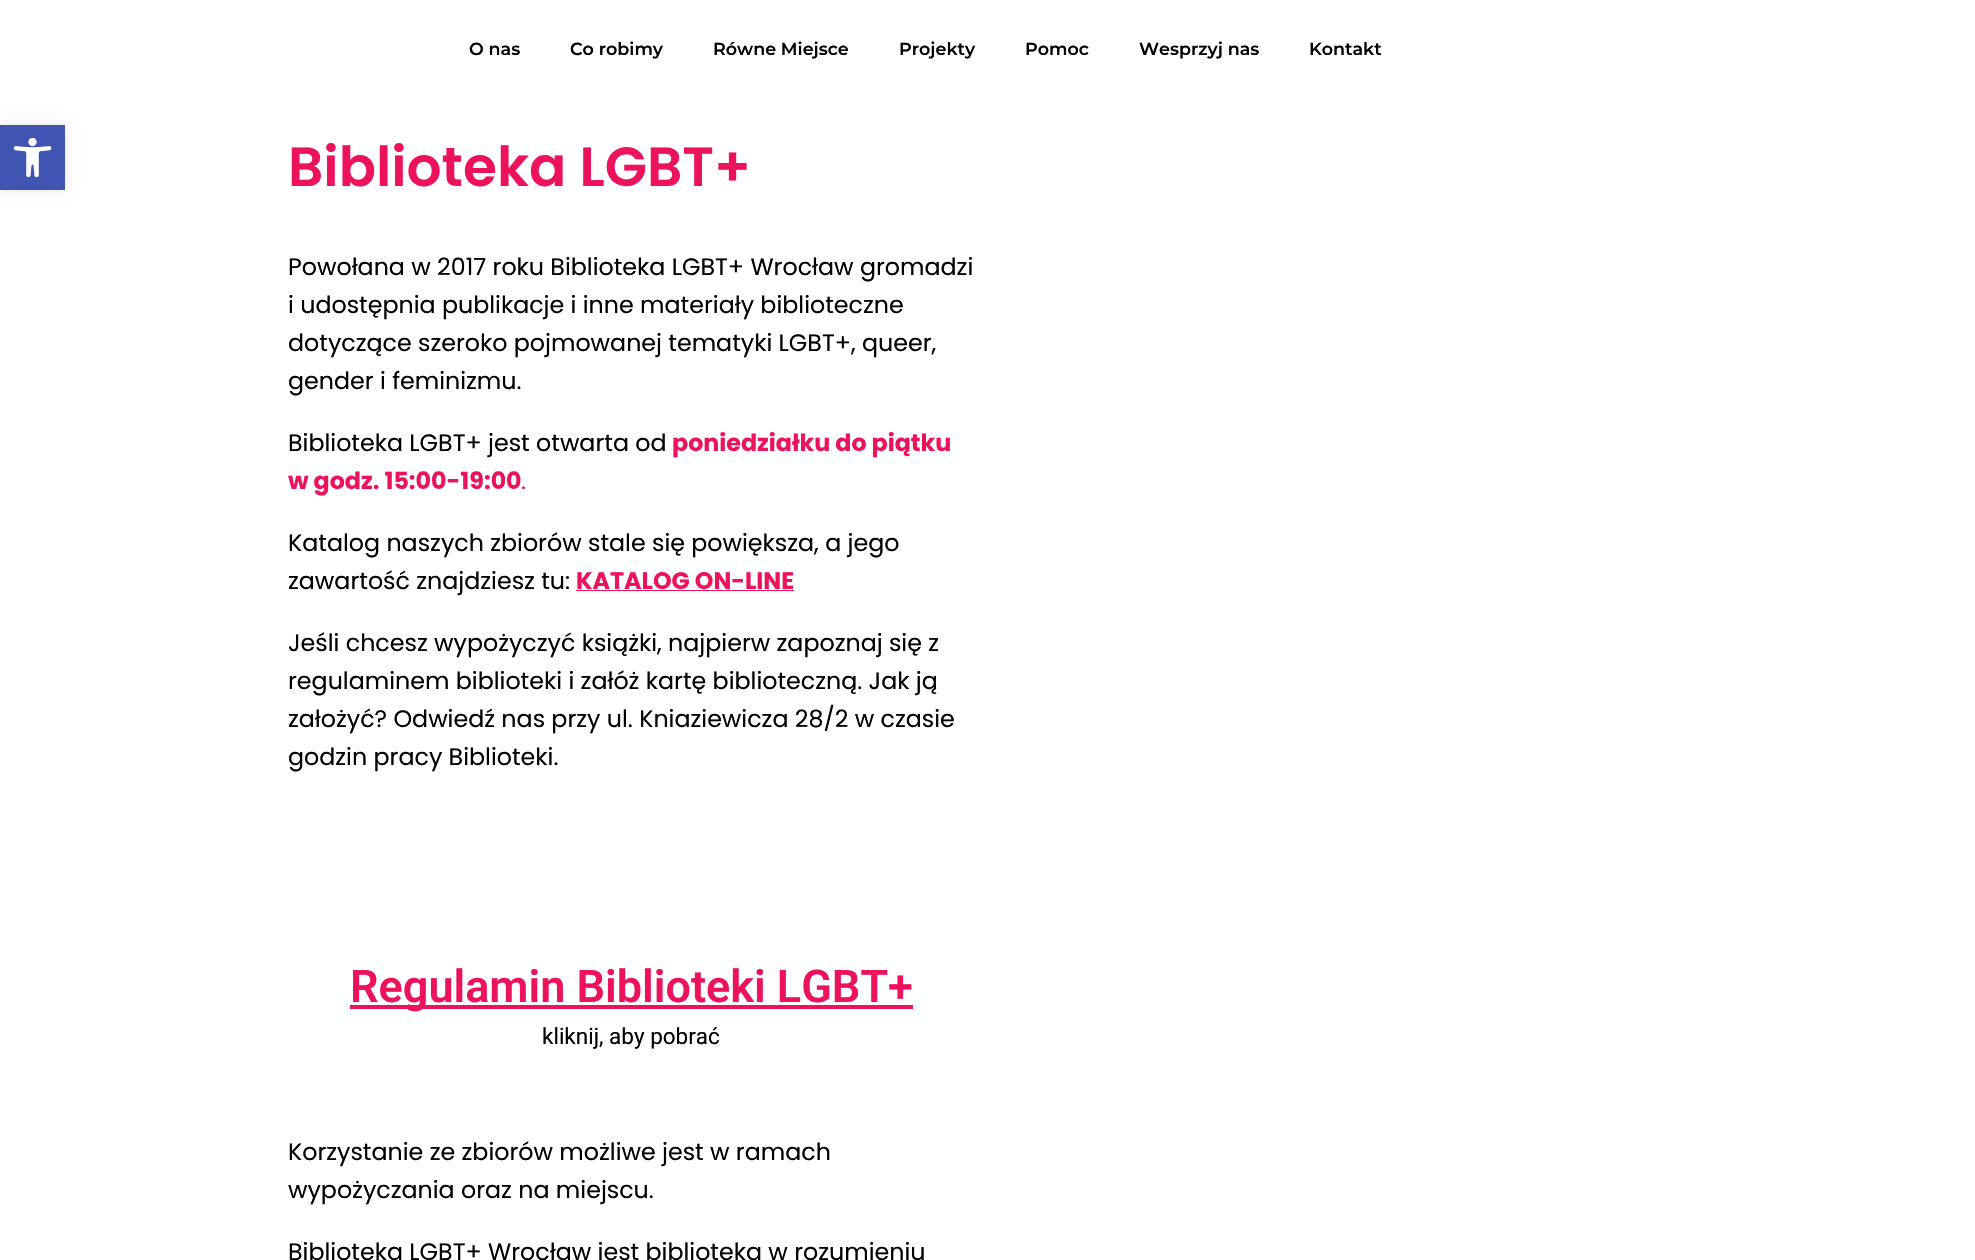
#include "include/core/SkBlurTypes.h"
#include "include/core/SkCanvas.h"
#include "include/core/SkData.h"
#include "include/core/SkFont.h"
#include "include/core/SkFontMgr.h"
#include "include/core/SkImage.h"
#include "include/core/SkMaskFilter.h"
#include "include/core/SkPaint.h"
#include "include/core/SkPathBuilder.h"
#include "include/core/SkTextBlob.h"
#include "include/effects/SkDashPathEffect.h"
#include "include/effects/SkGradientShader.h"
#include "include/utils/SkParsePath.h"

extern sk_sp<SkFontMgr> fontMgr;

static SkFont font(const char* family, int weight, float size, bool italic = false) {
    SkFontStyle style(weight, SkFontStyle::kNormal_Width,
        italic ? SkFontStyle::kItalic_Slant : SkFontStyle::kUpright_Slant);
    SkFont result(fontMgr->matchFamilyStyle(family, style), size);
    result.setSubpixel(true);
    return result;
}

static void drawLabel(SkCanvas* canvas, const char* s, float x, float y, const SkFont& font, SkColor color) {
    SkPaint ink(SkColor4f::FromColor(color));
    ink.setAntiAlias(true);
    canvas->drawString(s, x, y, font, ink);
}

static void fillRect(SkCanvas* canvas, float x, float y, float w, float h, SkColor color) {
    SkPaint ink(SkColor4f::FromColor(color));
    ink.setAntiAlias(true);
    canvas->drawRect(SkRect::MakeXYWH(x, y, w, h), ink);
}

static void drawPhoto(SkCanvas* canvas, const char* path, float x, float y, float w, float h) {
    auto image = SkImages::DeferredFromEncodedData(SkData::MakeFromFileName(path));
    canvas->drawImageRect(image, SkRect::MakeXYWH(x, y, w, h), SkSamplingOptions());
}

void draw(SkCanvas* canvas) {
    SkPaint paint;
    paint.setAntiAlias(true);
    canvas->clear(0xFFFFFFFF);
    SkFont font1 = font("Montserrat", 600, 17.5f);
    drawLabel(canvas, "O nas", 469, 55, font1, 0xFF000000);
    drawLabel(canvas, "Co robimy", 570, 55, font1, 0xFF000000);
    drawLabel(canvas, "Równe Miejsce", 713, 55, font1, 0xFF000000);
    drawLabel(canvas, "Projekty", 899, 55, font1, 0xFF000000);
    drawLabel(canvas, "Pomoc", 1025, 55, font1, 0xFF000000);
    drawLabel(canvas, "Wesprzyj nas", 1139, 55, font1, 0xFF000000);
    drawLabel(canvas, "Kontakt", 1309, 55, font1, 0xFF000000);
    paint.setColor(0x1A000000);
    paint.setMaskFilter(SkMaskFilter::MakeBlur(kNormal_SkBlurStyle, 6));
    canvas->drawRect(SkRect::MakeXYWH(0, 125, 65, 65), paint);
    paint.setMaskFilter(nullptr);
    fillRect(canvas, 0, 125, 65, 65, 0xFF4054B2);
    drawPhoto(canvas, "assets/img1.png", 13, 138, 39, 40);
    SkFont font2 = font("Poppins", 600, 55);
    drawLabel(canvas, "Biblioteka LGBT+", 288, 186, font2, 0xFFEC135B);
    SkFont font3 = font("Poppins", 400, 23.75f);
    drawLabel(canvas, "Powołana w 2017 roku Biblioteka LGBT+ Wrocław gromadzi", 288, 275, font3, 0xFF000000);
    drawLabel(canvas, "i udostępnia publikacje i inne materiały biblioteczne", 288, 313, font3, 0xFF000000);
    drawLabel(canvas, "dotyczące szeroko pojmowanej tematyki LGBT+, queer,", 288, 351, font3, 0xFF000000);
    drawLabel(canvas, "gender i feminizmu.", 288, 389, font3, 0xFF000000);
    drawLabel(canvas, "Biblioteka LGBT+ jest otwarta od", 288, 451, font3, 0xFF000000);
    SkFont font4 = font("Poppins", 700, 23.75f);
    drawLabel(canvas, "poniedziałku do piątku", 672, 451, font4, 0xFFEC135B);
    drawLabel(canvas, "w godz. 15:00-19:00", 288, 489, font4, 0xFFEC135B);
    drawLabel(canvas, ".", 521, 489, font3, 0xFFEC135B);
    drawLabel(canvas, "Katalog naszych zbiorów stale się powiększa, a jego", 288, 551, font3, 0xFF000000);
    drawLabel(canvas, "zawartość znajdziesz tu:", 288, 589, font3, 0xFF000000);
    drawLabel(canvas, "KATALOG ON-LINE", 576, 589, font4, 0xFFEC135B);
    fillRect(canvas, 576, 590, 218, 1, 0xFFEC135B);
    drawLabel(canvas, "Jeśli chcesz wypożyczyć książki, najpierw zapoznaj się z", 288, 651, font3, 0xFF000000);
    drawLabel(canvas, "regulaminem biblioteki i załóż kartę biblioteczną. Jak ją", 288, 689, font3, 0xFF000000);
    drawLabel(canvas, "założyć? Odwiedź nas przy ul. Kniaziewicza 28/2 w czasie", 288, 727, font3, 0xFF000000);
    drawLabel(canvas, "godzin pracy Biblioteki.", 288, 765, font3, 0xFF000000);
    fillRect(canvas, 350, 1005, 563, 4, 0xFFEC135B);
    SkFont font5 = font("Roboto", 600, 45);
    drawLabel(canvas, "Regulamin Biblioteki LGBT+", 350, 1002, font5, 0xFFEC135B);
    SkFont font6 = font("Roboto", 400, 22.5f);
    drawLabel(canvas, "kliknij, aby pobrać", 542, 1044, font6, 0xFF000000);
    drawLabel(canvas, "Korzystanie ze zbiorów możliwe jest w ramach", 288, 1160, font3, 0xFF000000);
    drawLabel(canvas, "wypożyczania oraz na miejscu.", 288, 1198, font3, 0xFF000000);
    drawLabel(canvas, "Biblioteka LGBT+ Wrocław jest biblioteką w rozumieniu", 288, 1260, font3, 0xFF000000);
}
